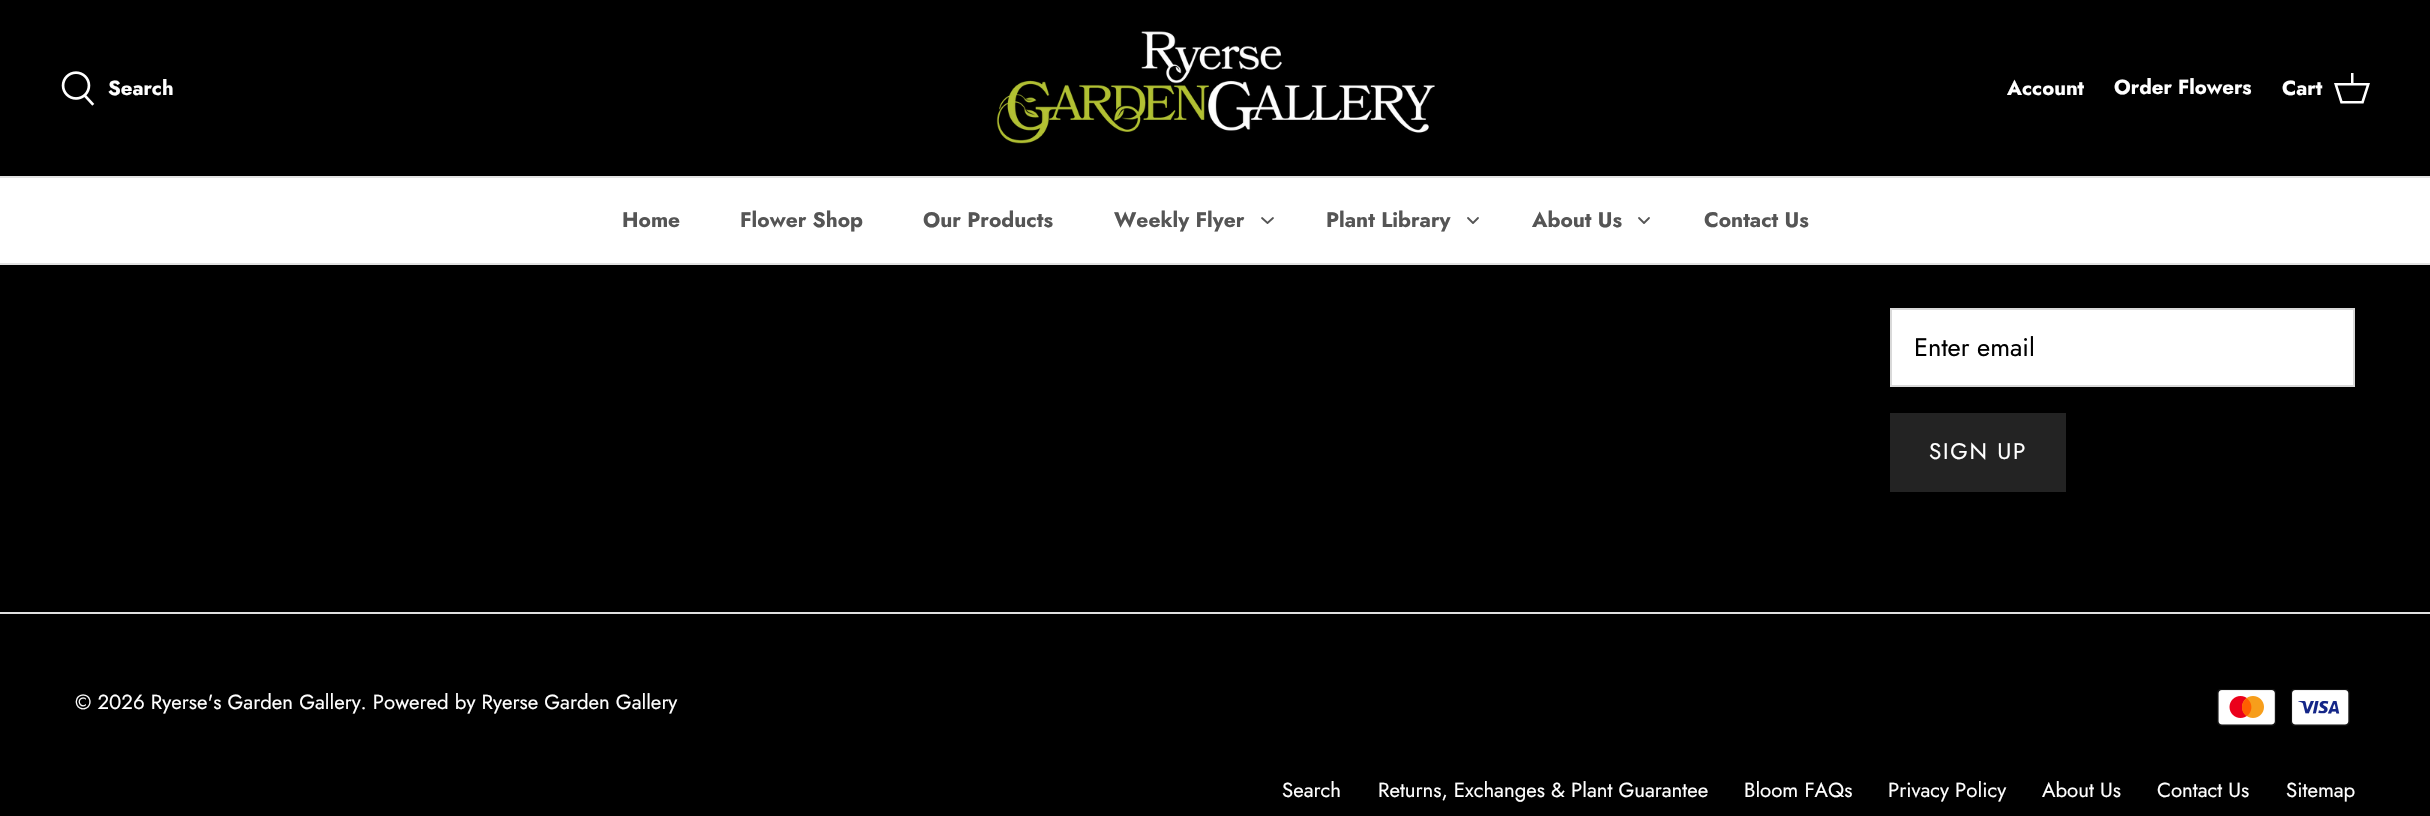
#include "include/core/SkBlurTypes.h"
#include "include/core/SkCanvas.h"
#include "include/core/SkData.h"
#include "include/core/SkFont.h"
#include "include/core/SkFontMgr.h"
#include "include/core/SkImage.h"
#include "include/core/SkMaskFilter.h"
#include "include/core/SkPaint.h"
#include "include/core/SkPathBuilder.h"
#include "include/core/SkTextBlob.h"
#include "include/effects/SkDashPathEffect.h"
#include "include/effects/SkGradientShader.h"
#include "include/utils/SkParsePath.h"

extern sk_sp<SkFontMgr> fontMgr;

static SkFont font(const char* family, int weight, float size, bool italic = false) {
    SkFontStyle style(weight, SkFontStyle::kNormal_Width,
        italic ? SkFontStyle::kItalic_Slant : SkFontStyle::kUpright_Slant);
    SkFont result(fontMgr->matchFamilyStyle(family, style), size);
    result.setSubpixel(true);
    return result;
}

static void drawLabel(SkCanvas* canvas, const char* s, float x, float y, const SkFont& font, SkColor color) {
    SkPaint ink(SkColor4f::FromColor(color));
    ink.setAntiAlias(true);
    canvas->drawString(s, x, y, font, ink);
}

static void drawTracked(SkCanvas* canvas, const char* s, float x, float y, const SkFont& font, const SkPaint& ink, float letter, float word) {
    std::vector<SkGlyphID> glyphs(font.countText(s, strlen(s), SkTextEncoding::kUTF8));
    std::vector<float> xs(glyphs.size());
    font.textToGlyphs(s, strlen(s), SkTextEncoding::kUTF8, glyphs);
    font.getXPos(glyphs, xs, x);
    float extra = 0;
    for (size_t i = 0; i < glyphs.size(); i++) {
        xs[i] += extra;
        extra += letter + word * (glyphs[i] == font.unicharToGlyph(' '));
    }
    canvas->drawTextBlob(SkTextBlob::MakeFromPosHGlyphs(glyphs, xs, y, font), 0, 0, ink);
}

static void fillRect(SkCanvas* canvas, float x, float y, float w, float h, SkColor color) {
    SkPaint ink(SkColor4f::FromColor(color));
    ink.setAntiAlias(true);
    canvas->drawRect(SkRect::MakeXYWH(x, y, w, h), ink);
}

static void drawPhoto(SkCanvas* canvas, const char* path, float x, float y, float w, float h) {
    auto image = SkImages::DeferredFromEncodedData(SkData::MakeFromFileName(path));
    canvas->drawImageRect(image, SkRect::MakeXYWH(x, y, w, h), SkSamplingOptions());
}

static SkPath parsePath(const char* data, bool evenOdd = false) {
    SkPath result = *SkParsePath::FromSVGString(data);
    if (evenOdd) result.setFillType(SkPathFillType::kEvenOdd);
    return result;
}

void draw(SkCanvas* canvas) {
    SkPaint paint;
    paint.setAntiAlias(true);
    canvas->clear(0xFF000000);
    fillRect(canvas, 0, 176, 2430, 2, 0xFFE2E2E2);
    drawPhoto(canvas, "assets/img1.png", 61, 71, 34, 35);
    SkFont font1 = font("Jost", 700, 20.4f);
    drawLabel(canvas, "Search", 108, 95, font1, 0xFFFFFFFF);
    drawPhoto(canvas, "assets/img2.png", 996, 31, 439, 113);
    drawLabel(canvas, "Account", 2007, 95, font1, 0xFFFFFFFF);
    drawLabel(canvas, "Order Flowers", 2114, 94, font1, 0xFFFFFFFF);
    drawLabel(canvas, "Cart", 2282, 95, font1, 0xFFFFFFFF);
    paint.setColor(0xFFFFFFFF);
    canvas->drawPath(parsePath("M2351 83V73H2353.5V83H2370L2363.5 103.5H2340.5L2334 83ZM2337.5 85.5L2342.5 101H2361.5L2366.5 85.5Z"), paint);
    fillRect(canvas, 0, 263, 2430, 2, 0xFFE2E2E2);
    fillRect(canvas, 0, 178, 2430, 85, 0xFFFFFFFF);
    SkFont font2 = font("Jost", 700, 21);
    drawLabel(canvas, "Home", 622, 227, font2, 0xFF555555);
    drawLabel(canvas, "Flower Shop", 740, 227, font2, 0xFF555555);
    drawLabel(canvas, "Our Products", 923, 227, font2, 0xFF555555);
    drawLabel(canvas, "Weekly Flyer", 1114, 227, font2, 0xFF555555);
    paint.setStroke(true);
    paint.setStrokeWidth(1.8f);
    paint.setStrokeCap(SkPaint::kRound_Cap);
    paint.setStrokeJoin(SkPaint::kRound_Join);
    paint.setColor(0xFF555555);
    canvas->drawPath(parsePath("M1262 218L1267.5 223L1273 218"), paint);
    drawLabel(canvas, "Plant Library", 1326, 227, font2, 0xFF555555);
    canvas->drawPath(parsePath("M1468 218L1473 223L1478 218"), paint);
    drawLabel(canvas, "About Us", 1532, 227, font2, 0xFF555555);
    canvas->drawPath(parsePath("M1639 218L1644 223L1649 218"), paint);
    drawLabel(canvas, "Contact Us", 1704, 227, font2, 0xFF555555);
    paint.setStroke(false);
    paint.setColor(0xFFFFFFFF);
    canvas->drawRect(SkRect::MakeXYWH(1891, 309, 463, 77), paint);
    paint.setStroke(true);
    paint.setStrokeWidth(2);
    paint.setStrokeCap(SkPaint::kButt_Cap);
    paint.setStrokeJoin(SkPaint::kMiter_Join);
    paint.setColor(0xFFD9D9D9);
    canvas->drawRect(SkRect::MakeXYWH(1891, 309, 463, 77), paint);
    SkFont font3 = font("Jost", 400, 25.5f);
    drawLabel(canvas, "Enter email", 1914, 356, font3, 0xFF000000);
    fillRect(canvas, 1890, 413, 176, 79, 0xFF232323);
    SkFont font4 = font("Jost", 400, 22.5f);
    paint.setStroke(false);
    paint.setColor(0xFFFFFFFF);
    drawTracked(canvas, "SIGN UP", 1929, 459, font4, paint, 1.75f, 0);
    fillRect(canvas, 0, 612, 2430, 2, 0xFFE0E0E0);
    SkFont font5 = font("Jost", 400, 20.4f);
    drawLabel(canvas, "© 2026 Ryerse's Garden Gallery. Powered by Ryerse Garden Gallery", 75, 709, font5, 0xFFFFFFFF);
    drawPhoto(canvas, "assets/img3.png", 2217, 689, 59, 37);
    drawPhoto(canvas, "assets/img4.png", 2291, 689, 59, 37);
    drawLabel(canvas, "Search", 1282, 797, font5, 0xFFFFFFFF);
    drawLabel(canvas, "Returns, Exchanges & Plant Guarantee", 1378, 797, font5, 0xFFFFFFFF);
    drawLabel(canvas, "Bloom FAQs", 1744, 797, font5, 0xFFFFFFFF);
    drawLabel(canvas, "Privacy Policy", 1888, 797, font5, 0xFFFFFFFF);
    drawLabel(canvas, "About Us", 2042, 797, font5, 0xFFFFFFFF);
    drawLabel(canvas, "Contact Us", 2157, 797, font5, 0xFFFFFFFF);
    drawLabel(canvas, "Sitemap", 2286, 797, font5, 0xFFFFFFFF);
}
